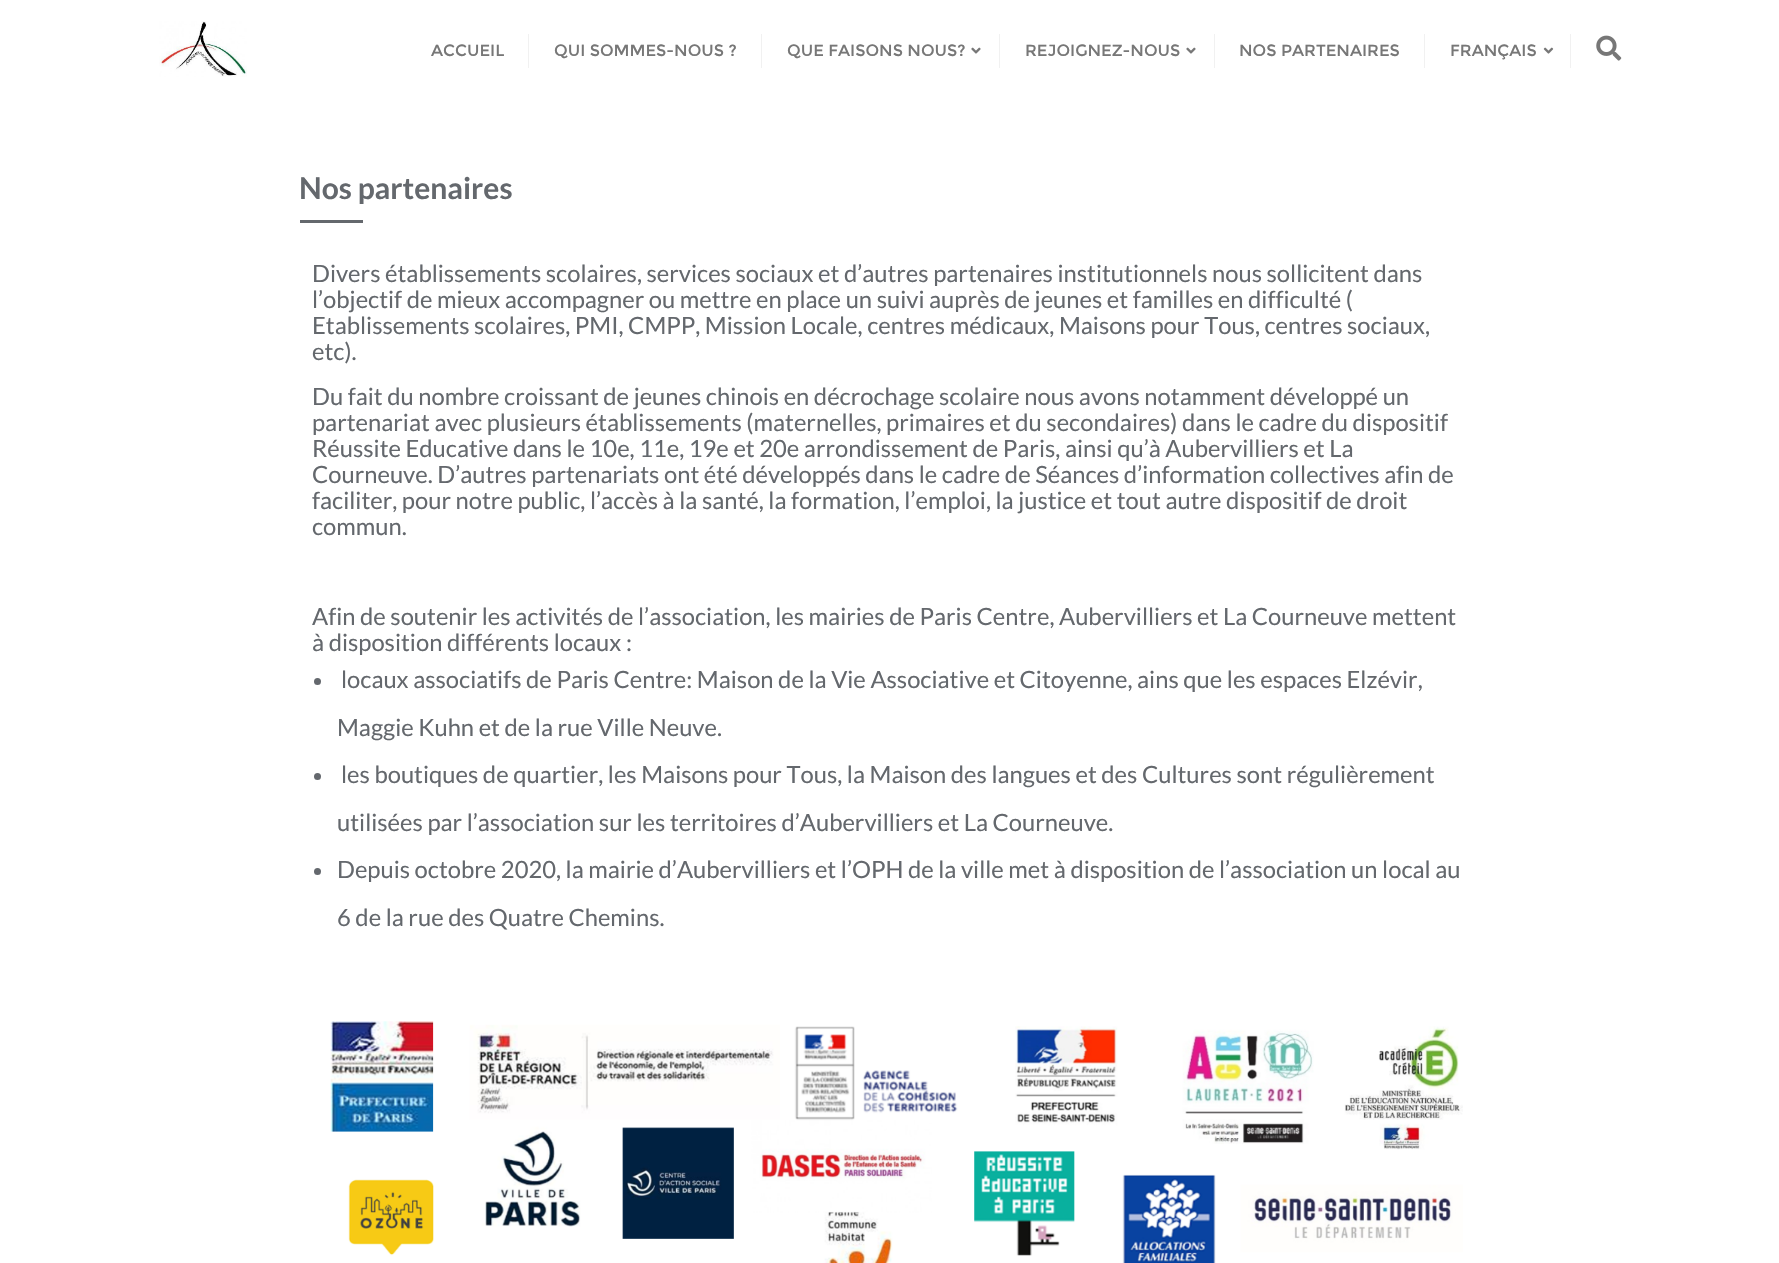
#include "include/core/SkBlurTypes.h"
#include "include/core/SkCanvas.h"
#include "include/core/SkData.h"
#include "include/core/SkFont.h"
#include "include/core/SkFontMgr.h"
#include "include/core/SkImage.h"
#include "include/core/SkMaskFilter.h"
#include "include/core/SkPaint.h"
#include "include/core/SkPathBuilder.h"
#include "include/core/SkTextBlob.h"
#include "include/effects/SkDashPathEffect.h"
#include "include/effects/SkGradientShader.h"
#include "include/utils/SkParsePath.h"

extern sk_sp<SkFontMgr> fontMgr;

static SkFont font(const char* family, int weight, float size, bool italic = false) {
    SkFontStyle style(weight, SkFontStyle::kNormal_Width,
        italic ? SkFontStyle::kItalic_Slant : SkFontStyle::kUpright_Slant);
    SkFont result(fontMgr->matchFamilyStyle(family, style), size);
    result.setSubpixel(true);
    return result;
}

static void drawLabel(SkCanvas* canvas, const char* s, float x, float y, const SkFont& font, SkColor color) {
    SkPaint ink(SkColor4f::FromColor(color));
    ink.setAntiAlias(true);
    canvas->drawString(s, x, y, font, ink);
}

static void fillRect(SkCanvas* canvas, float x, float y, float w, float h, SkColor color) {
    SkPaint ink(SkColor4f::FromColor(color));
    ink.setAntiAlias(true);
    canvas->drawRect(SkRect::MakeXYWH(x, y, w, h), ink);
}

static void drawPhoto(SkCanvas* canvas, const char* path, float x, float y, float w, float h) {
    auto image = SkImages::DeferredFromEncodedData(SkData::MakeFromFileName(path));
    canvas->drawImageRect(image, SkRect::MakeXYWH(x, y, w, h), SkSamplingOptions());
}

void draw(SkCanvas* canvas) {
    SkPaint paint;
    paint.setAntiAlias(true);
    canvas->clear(0xFFFFFFFF);
    drawPhoto(canvas, "assets/img1.png", 159, 21, 88, 56);
    SkFont font1 = font("Montserrat", 400, 16.25f);
    drawLabel(canvas, "ACCUEIL", 431, 56, font1, 0xFF777777);
    fillRect(canvas, 528, 34, 1, 34, 0xFFF1F1F1);
    drawLabel(canvas, "QUI SOMMES-NOUS ?", 554, 56, font1, 0xFF777777);
    fillRect(canvas, 761, 34, 1, 34, 0xFFF1F1F1);
    drawLabel(canvas, "QUE FAISONS NOUS?", 787, 56, font1, 0xFF777777);
    drawPhoto(canvas, "assets/img2.png", 971, 47, 10, 7);
    fillRect(canvas, 999, 34, 1, 34, 0xFFF1F1F1);
    drawLabel(canvas, "REJOIGNEZ-NOUS", 1025, 56, font1, 0xFF777777);
    drawPhoto(canvas, "assets/img2.png", 1186, 47, 10, 7);
    fillRect(canvas, 1214, 34, 1, 34, 0xFFF1F1F1);
    drawLabel(canvas, "NOS PARTENAIRES", 1239, 56, font1, 0xFF777777);
    fillRect(canvas, 1424, 34, 1, 34, 0xFFF1F1F1);
    drawLabel(canvas, "FRANÇAIS", 1450, 56, font1, 0xFF777777);
    drawPhoto(canvas, "assets/img3.png", 1543, 47, 11, 7);
    fillRect(canvas, 1570, 34, 1, 34, 0xFFF1F1F1);
    drawPhoto(canvas, "assets/img4.png", 1596, 35, 26, 26);
    SkFont font2 = font("Lato", 700, 30);
    drawLabel(canvas, "Nos partenaires", 299, 199, font2, 0xFF64686D);
    fillRect(canvas, 300, 220, 63, 3, 0xFF64686D);
    SkFont font3 = font("Lato", 400, 23.75f);
    drawLabel(canvas, "Divers établissements scolaires, services sociaux et d’autres partenaires institutionnels nous sollicitent dans", 312, 282, font3, 0xFF64686D);
    drawLabel(canvas, "l’objectif de mieux accompagner ou mettre en place un suivi auprès de jeunes et familles en difficulté (", 312, 308, font3, 0xFF64686D);
    drawLabel(canvas, "Etablissements scolaires, PMI, CMPP, Mission Locale, centres médicaux, Maisons pour Tous, centres sociaux,", 312, 334, font3, 0xFF64686D);
    drawLabel(canvas, "etc).", 312, 360, font3, 0xFF64686D);
    drawLabel(canvas, "Du fait du nombre croissant de jeunes chinois en décrochage scolaire nous avons notamment développé un", 312, 405, font3, 0xFF64686D);
    drawLabel(canvas, "partenariat avec plusieurs établissements (maternelles, primaires et du secondaires) dans le cadre du dispositif", 312, 431, font3, 0xFF64686D);
    drawLabel(canvas, "Réussite Educative dans le 10e, 11e, 19e et 20e arrondissement de Paris, ainsi qu’à Aubervilliers et La", 312, 457, font3, 0xFF64686D);
    drawLabel(canvas, "Courneuve. D’autres partenariats ont été développés dans le cadre de Séances d’information collectives afin de", 312, 483, font3, 0xFF64686D);
    drawLabel(canvas, "faciliter, pour notre public, l’accès à la santé, la formation, l’emploi, la justice et tout autre dispositif de droit", 312, 509, font3, 0xFF64686D);
    drawLabel(canvas, "commun.", 312, 535, font3, 0xFF64686D);
    drawLabel(canvas, "Afin de soutenir les activités de l’association, les mairies de Paris Centre, Aubervilliers et La Courneuve mettent", 312, 625, font3, 0xFF64686D);
    drawLabel(canvas, "à disposition différents locaux :", 312, 651, font3, 0xFF64686D);
    paint.setColor(0xFF64686D);
    canvas->drawCircle(317.5f, 681.5f, 3.5f, paint);
    drawLabel(canvas, "locaux associatifs de Paris Centre: Maison de la Vie Associative et Citoyenne, ains que les espaces Elzévir,", 341, 688, font3, 0xFF64686D);
    drawLabel(canvas, "Maggie Kuhn et de la rue Ville Neuve.", 337, 736, font3, 0xFF64686D);
    canvas->drawCircle(317.5f, 776.5f, 3.5f, paint);
    drawLabel(canvas, "les boutiques de quartier, les Maisons pour Tous, la Maison des langues et des Cultures sont régulièrement", 341, 783, font3, 0xFF64686D);
    drawLabel(canvas, "utilisées par l’association sur les territoires d’Aubervilliers et La Courneuve.", 337, 831, font3, 0xFF64686D);
    canvas->drawCircle(317.5f, 871.5f, 3.5f, paint);
    drawLabel(canvas, "Depuis octobre 2020, la mairie d’Aubervilliers et l’OPH de la ville met à disposition de l’association un local au", 337, 878, font3, 0xFF64686D);
    drawLabel(canvas, "6 de la rue des Quatre Chemins.", 337, 926, font3, 0xFF64686D);
    drawPhoto(canvas, "assets/img5.png", 330, 1021, 1133, 242);
}
